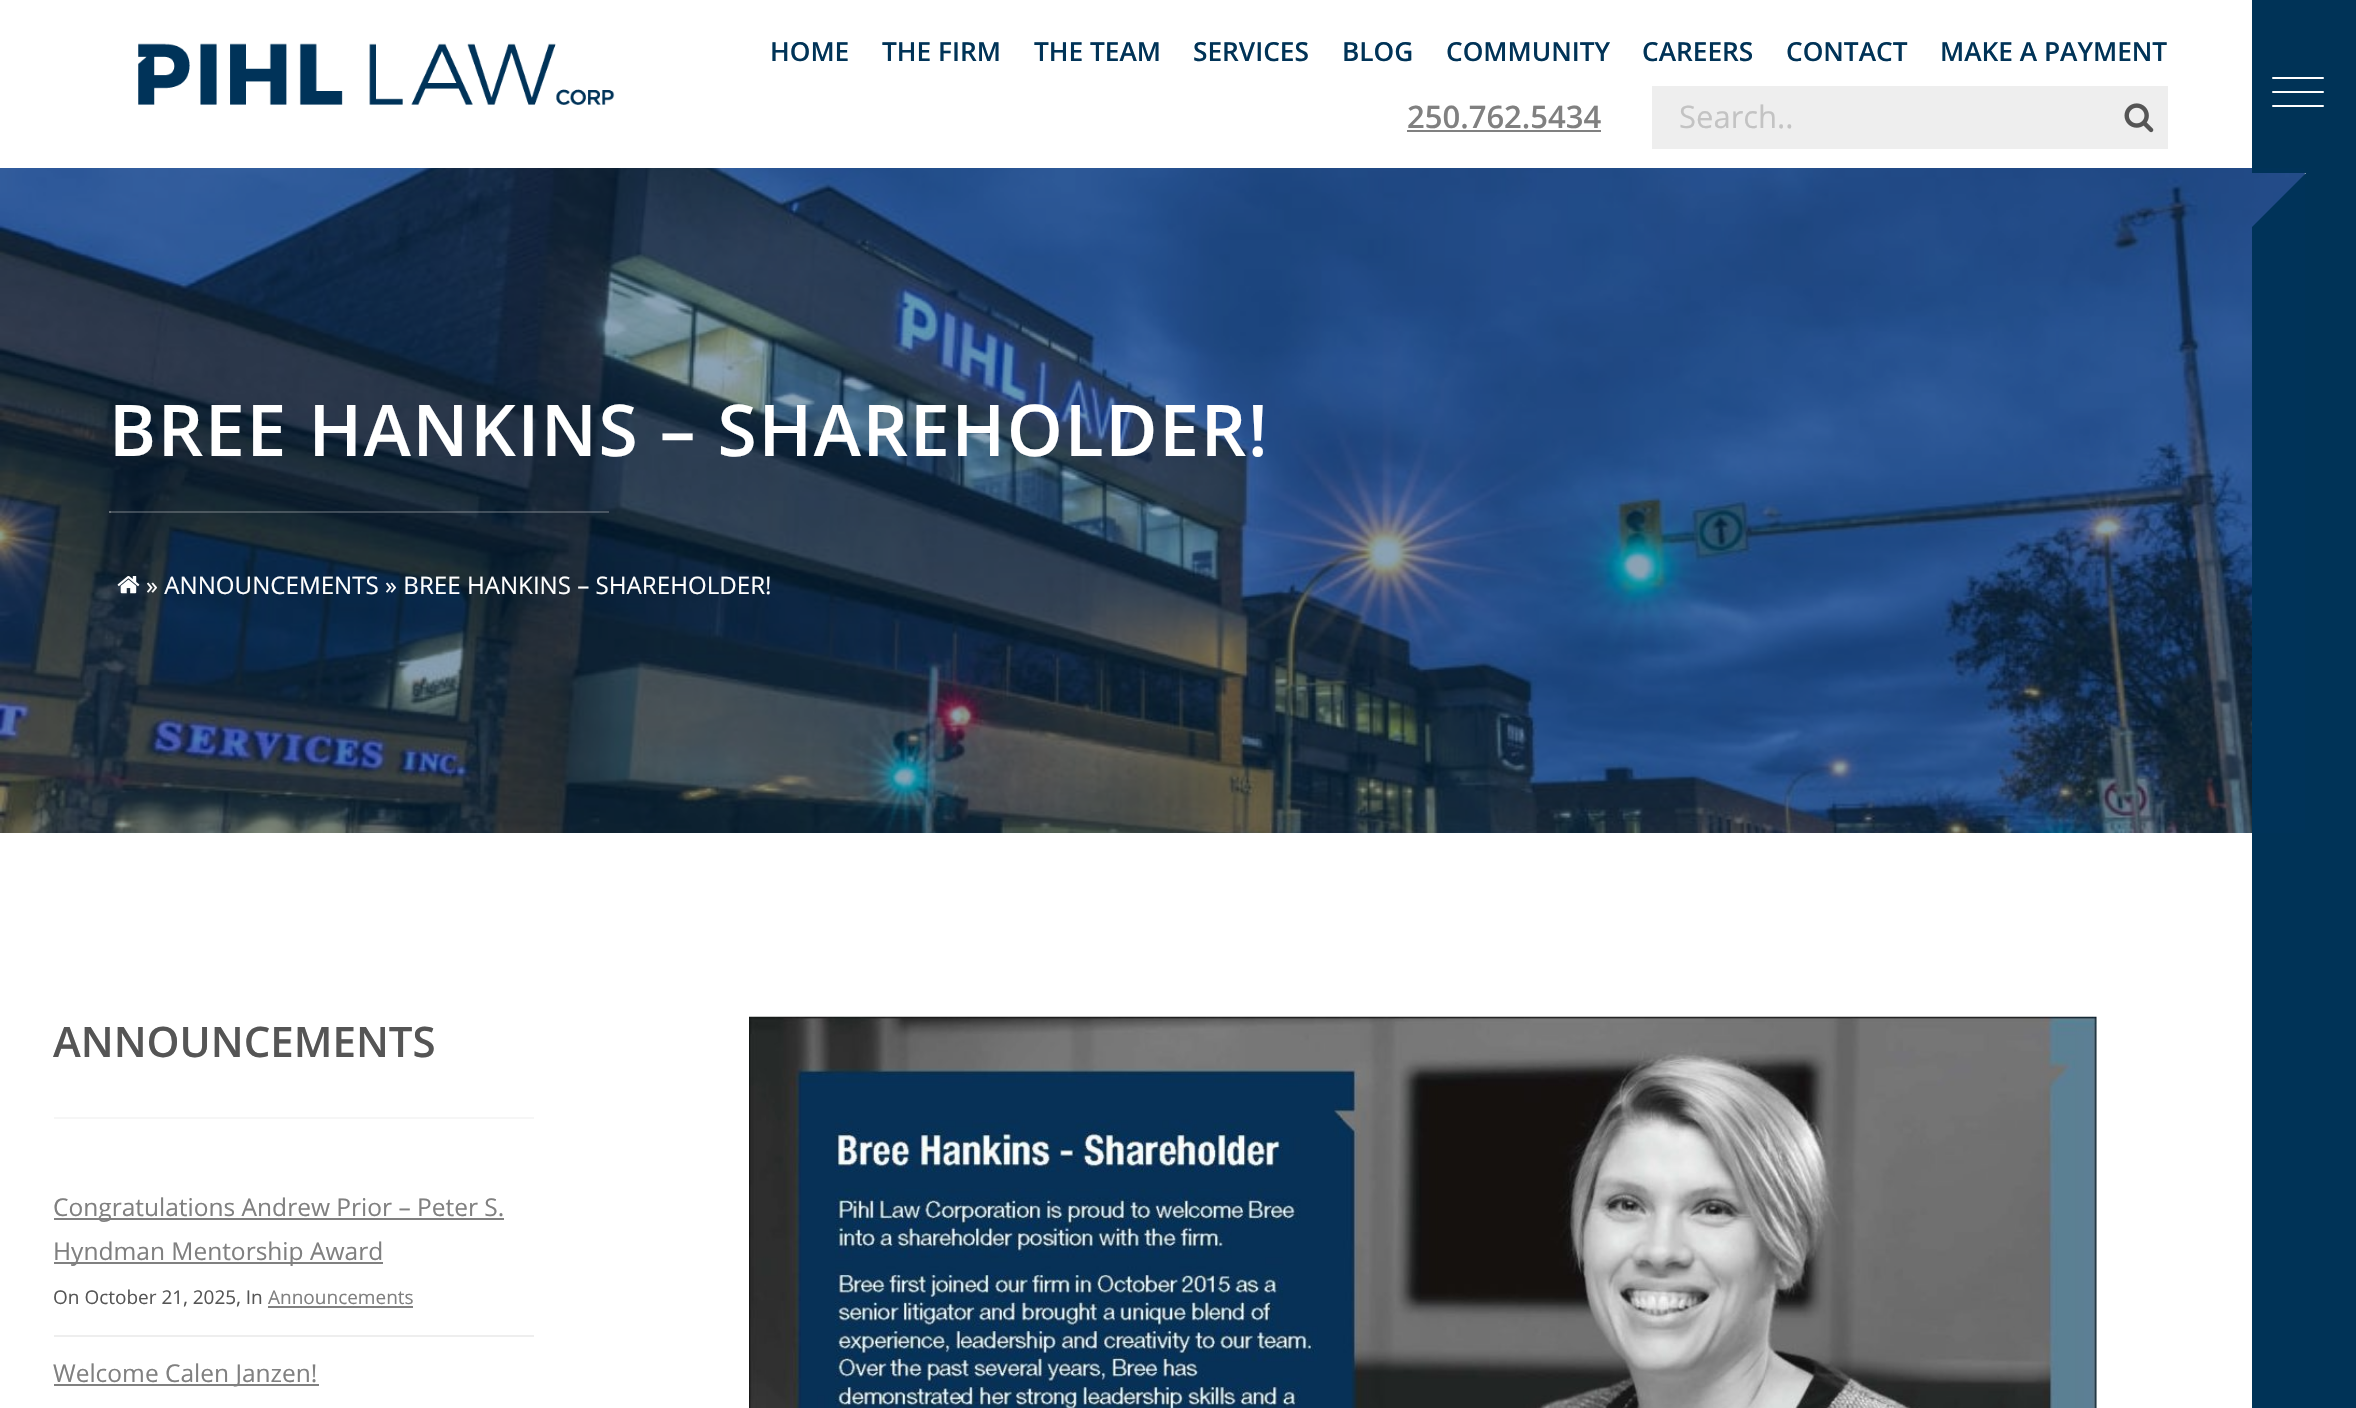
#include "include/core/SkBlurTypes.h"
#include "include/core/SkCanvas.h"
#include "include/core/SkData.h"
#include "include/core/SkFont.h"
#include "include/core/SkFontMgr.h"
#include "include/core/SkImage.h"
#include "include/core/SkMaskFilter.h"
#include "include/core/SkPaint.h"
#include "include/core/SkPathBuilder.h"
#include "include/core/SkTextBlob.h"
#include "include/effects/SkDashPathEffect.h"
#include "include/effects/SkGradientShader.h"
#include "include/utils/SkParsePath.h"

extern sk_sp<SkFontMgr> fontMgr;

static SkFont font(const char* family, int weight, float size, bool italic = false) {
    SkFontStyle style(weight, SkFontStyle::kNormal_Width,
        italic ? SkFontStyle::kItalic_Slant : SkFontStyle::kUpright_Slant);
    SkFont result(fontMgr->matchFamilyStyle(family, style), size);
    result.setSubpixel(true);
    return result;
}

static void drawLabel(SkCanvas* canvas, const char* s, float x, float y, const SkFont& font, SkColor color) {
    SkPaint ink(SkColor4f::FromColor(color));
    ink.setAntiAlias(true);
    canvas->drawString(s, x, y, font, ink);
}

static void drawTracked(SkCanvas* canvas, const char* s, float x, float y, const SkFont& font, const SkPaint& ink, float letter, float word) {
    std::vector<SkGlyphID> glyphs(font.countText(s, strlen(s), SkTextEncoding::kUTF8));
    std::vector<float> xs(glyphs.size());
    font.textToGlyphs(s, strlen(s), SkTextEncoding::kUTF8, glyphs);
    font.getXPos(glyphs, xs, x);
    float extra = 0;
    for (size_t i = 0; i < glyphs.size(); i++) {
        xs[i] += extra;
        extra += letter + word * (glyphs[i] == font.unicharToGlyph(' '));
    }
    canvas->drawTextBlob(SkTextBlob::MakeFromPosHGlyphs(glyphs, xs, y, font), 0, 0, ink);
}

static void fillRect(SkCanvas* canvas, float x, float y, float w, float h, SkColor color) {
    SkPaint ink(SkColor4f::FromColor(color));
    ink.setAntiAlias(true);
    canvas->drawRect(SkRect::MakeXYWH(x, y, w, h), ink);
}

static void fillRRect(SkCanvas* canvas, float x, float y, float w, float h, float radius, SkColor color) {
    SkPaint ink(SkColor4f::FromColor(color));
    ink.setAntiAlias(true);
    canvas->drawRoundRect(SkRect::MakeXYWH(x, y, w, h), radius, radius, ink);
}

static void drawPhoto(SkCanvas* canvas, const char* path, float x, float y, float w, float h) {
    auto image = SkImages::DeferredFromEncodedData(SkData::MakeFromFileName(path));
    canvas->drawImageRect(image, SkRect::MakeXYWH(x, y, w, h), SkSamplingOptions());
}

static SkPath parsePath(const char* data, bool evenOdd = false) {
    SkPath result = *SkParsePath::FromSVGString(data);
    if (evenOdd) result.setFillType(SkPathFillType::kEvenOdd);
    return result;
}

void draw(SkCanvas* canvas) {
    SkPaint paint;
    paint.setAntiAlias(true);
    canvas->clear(0xFFFFFFFF);
    drawPhoto(canvas, "assets/img1.png", 138, 43, 477, 62);
    SkFont font1 = font("Open Sans", 600, 26.25f);
    drawLabel(canvas, "HOME", 770, 61, font1, 0xFF003357);
    drawLabel(canvas, "THE FIRM", 882, 61, font1, 0xFF003357);
    drawLabel(canvas, "THE TEAM", 1034, 61, font1, 0xFF003357);
    drawLabel(canvas, "SERVICES", 1193, 61, font1, 0xFF003357);
    drawLabel(canvas, "BLOG", 1342, 61, font1, 0xFF003357);
    drawLabel(canvas, "COMMUNITY", 1446, 61, font1, 0xFF003357);
    drawLabel(canvas, "CAREERS", 1642, 61, font1, 0xFF003357);
    drawLabel(canvas, "CONTACT", 1786, 61, font1, 0xFF003357);
    drawLabel(canvas, "MAKE A PAYMENT", 1940, 61, font1, 0xFF003357);
    SkFont font2 = font("Open Sans", 600, 31);
    drawLabel(canvas, "250.762.5434", 1407, 128, font2, 0xFF808080);
    fillRect(canvas, 1407, 130, 194, 2, 0xFF808080);
    fillRect(canvas, 1652, 86, 516, 63, 0xFFEEEEEE);
    SkFont font3 = font("Open Sans", 400, 31);
    drawLabel(canvas, "Search..", 1679, 128, font3, 0xFFC3C3C3);
    drawPhoto(canvas, "assets/img2.png", 2124, 103, 30, 30);
    drawPhoto(canvas, "assets/img3.png", 0, 168, 2305, 665);
    fillRect(canvas, 2252, 250, 104, 1158, 0xFF003357);
    paint.setColor(0xFF003357);
    canvas->drawPath(parsePath("M2252 0V173H2306L2252 227V250H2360V0Z"), paint);
    fillRect(canvas, 0, 168, 2305, 665, 0x7300335A);
    SkFont font4 = font("Open Sans", 600, 71.3f);
    paint.setColor(0xFFFFFFFF);
    drawTracked(canvas, "BREE HANKINS – SHAREHOLDER!", 109, 456, font4, paint, 1.75f, 0);
    fillRect(canvas, 109, 511, 500, 2, 0x40DCDCDC);
    fillRect(canvas, 109, 511, 2, 2, 0xFF6C737A);
    drawPhoto(canvas, "assets/img4.png", 117, 576, 23, 18);
    SkFont font5 = font("Open Sans", 400, 24.1f);
    drawLabel(canvas, "» ANNOUNCEMENTS » BREE HANKINS – SHAREHOLDER!", 146, 594, font5, 0xFFFFFFFF);
    SkFont font6 = font("Open Sans", 600, 42);
    drawLabel(canvas, "ANNOUNCEMENTS", 53, 1057, font6, 0xFF555555);
    fillRect(canvas, 54, 1117, 480, 2, 0xFFF6F6F6);
    fillRect(canvas, 54, 1335, 480, 2, 0xFFEEEEEE);
    fillRect(canvas, 54, 1218, 450, 2, 0xFF808080);
    SkFont font7 = font("Open Sans", 400, 24.5f);
    drawLabel(canvas, "Congratulations Andrew Prior – Peter S.", 53, 1216, font7, 0xFF808080);
    fillRect(canvas, 54, 1262, 329, 2, 0xFF808080);
    drawLabel(canvas, "Hyndman Mentorship Award", 53, 1260, font7, 0xFF808080);
    SkFont font8 = font("Open Sans", 400, 19);
    drawLabel(canvas, "On October 21, 2025, In", 53, 1304, font8, 0xFF555555);
    drawLabel(canvas, "Announcements", 268, 1304, font8, 0xFF808080);
    fillRect(canvas, 268, 1306, 145, 2, 0xFF808080);
    fillRect(canvas, 54, 1384, 265, 2, 0xFF808080);
    drawLabel(canvas, "Welcome Calen Janzen!", 53, 1382, font7, 0xFF808080);
    drawPhoto(canvas, "assets/img5.png", 749, 1016, 1348, 392);
    fillRRect(canvas, 2272, 91, 52, 2, 1, 0xFFFFFFFF);
    fillRRect(canvas, 2272, 77, 52, 2, 1, 0xFFFFFFFF);
    fillRRect(canvas, 2272, 105, 52, 2, 1, 0xFFFFFFFF);
}
